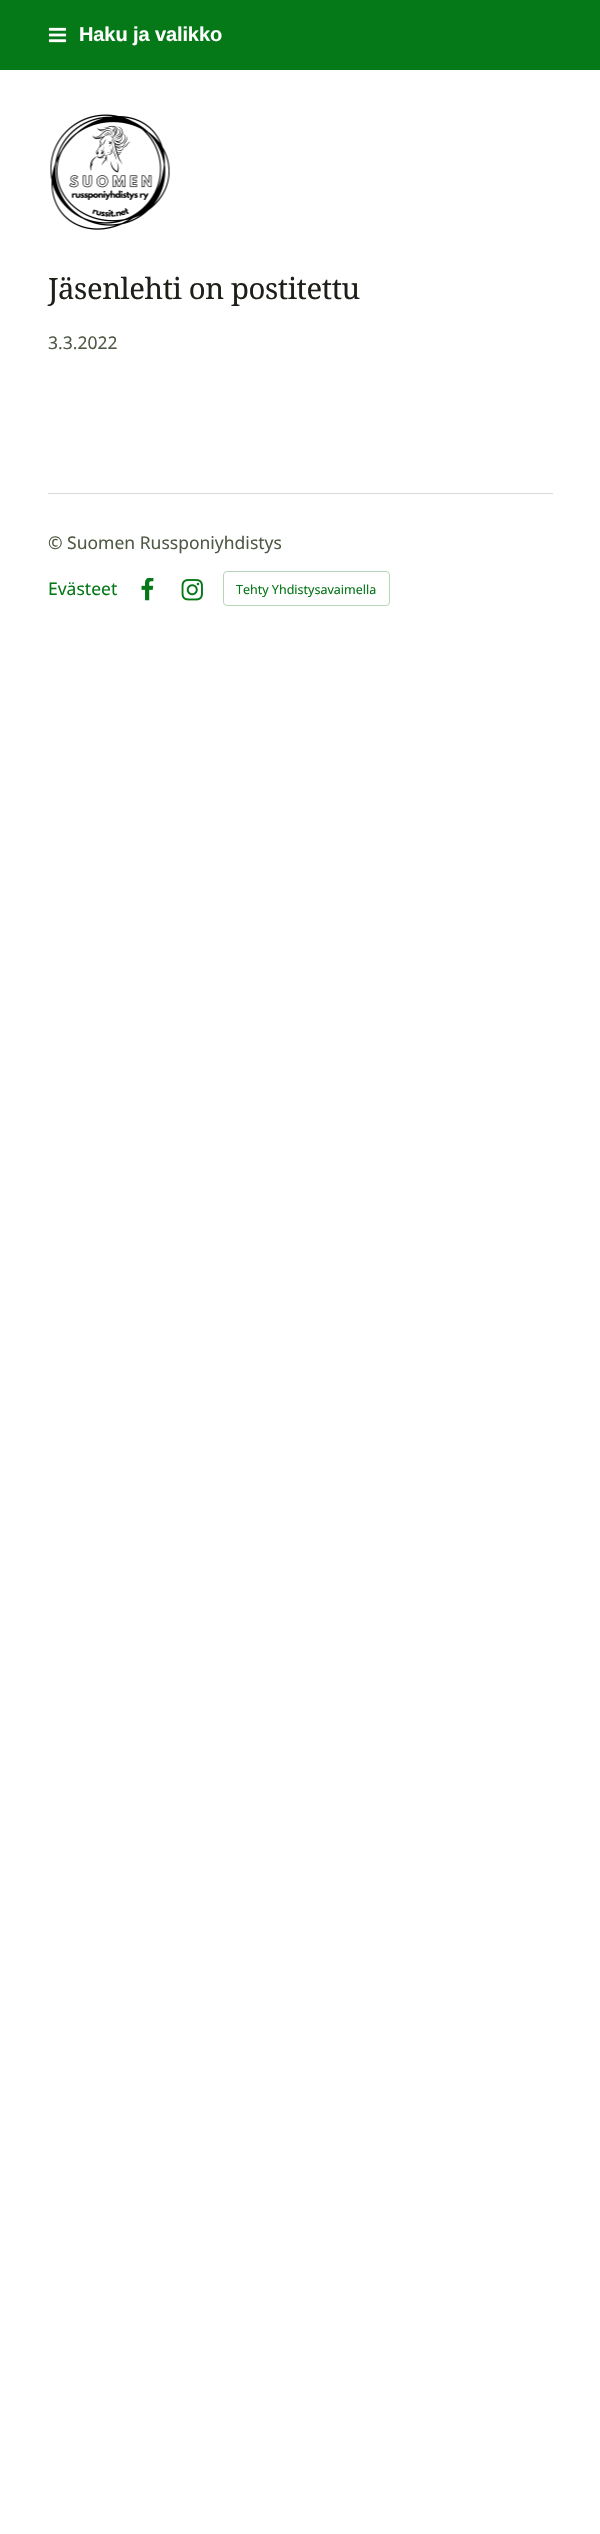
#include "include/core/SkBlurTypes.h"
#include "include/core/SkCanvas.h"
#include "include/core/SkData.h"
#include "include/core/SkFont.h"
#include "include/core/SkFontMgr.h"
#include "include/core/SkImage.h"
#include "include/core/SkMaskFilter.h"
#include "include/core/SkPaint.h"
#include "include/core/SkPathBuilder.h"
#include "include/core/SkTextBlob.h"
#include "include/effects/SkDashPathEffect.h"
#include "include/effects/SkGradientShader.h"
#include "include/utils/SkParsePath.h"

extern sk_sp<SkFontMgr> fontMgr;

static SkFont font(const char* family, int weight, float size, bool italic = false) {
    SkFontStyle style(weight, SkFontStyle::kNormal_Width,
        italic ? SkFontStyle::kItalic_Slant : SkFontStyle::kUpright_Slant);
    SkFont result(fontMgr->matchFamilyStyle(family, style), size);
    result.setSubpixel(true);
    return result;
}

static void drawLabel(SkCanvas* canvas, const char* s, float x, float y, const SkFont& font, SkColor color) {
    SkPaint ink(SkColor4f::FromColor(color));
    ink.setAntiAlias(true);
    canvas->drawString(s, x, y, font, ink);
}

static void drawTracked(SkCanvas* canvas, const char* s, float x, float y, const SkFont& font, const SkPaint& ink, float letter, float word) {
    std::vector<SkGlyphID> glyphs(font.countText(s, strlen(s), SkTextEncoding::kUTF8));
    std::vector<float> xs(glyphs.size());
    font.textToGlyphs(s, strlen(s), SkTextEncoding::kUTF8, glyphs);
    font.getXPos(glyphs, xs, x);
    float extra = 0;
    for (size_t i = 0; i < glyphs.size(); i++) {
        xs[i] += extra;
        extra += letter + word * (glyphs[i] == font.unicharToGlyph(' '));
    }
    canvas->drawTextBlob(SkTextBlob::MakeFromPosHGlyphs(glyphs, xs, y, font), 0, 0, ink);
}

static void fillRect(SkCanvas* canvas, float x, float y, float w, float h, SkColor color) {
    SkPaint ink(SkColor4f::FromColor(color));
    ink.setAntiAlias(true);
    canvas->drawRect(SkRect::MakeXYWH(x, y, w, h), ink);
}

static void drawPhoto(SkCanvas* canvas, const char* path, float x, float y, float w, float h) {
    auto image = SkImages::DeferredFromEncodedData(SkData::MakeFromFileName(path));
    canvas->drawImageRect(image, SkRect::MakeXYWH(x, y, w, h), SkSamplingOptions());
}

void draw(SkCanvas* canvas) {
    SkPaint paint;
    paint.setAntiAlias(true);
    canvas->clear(0xFFFFFFFF);
    fillRect(canvas, 0, 0, 600, 70, 0xFF057818);
    drawPhoto(canvas, "assets/img1.png", 48, 27, 19, 16);
    SkFont font1 = font("Liberation Sans", 700, 20);
    paint.setColor(0xFFFFFFFF);
    drawTracked(canvas, "Haku ja valikko", 79, 41, font1, paint, -0.1f, 0);
    drawPhoto(canvas, "assets/img2.png", 50, 114, 120, 116);
    SkFont font2 = font("Noto Serif", 400, 29.25f);
    paint.setColor(0xFF1C2018);
    drawTracked(canvas, "Jäsenlehti on postitettu", 48, 299, font2, paint, -0.4f, 0);
    SkFont font3 = font("Noto Sans", 400, 17.5f);
    drawLabel(canvas, "3.3.2022", 48, 349, font3, 0xFF4F5A44);
    fillRect(canvas, 48, 493, 505, 1, 0xFFD9D9D9);
    drawLabel(canvas, "© Suomen Russponiyhdistys", 48, 549, font3, 0xFF4F5A44);
    drawLabel(canvas, "Evästeet", 48, 595, font3, 0xFF057818);
    drawPhoto(canvas, "assets/img3.png", 141, 578, 13, 23);
    drawPhoto(canvas, "assets/img4.png", 181, 579, 22, 22);
    paint.setStroke(true);
    paint.setStrokeWidth(1);
    paint.setColor(0xFFB4D7BA);
    canvas->drawRoundRect(SkRect::MakeXYWH(223.5f, 571.5f, 166, 34), 3.5f, 3.5f, paint);
    SkFont font4 = font("Noto Sans", 400, 12.5f);
    drawLabel(canvas, "Tehty Yhdistysavaimella", 236, 594, font4, 0xFF057818);
}
